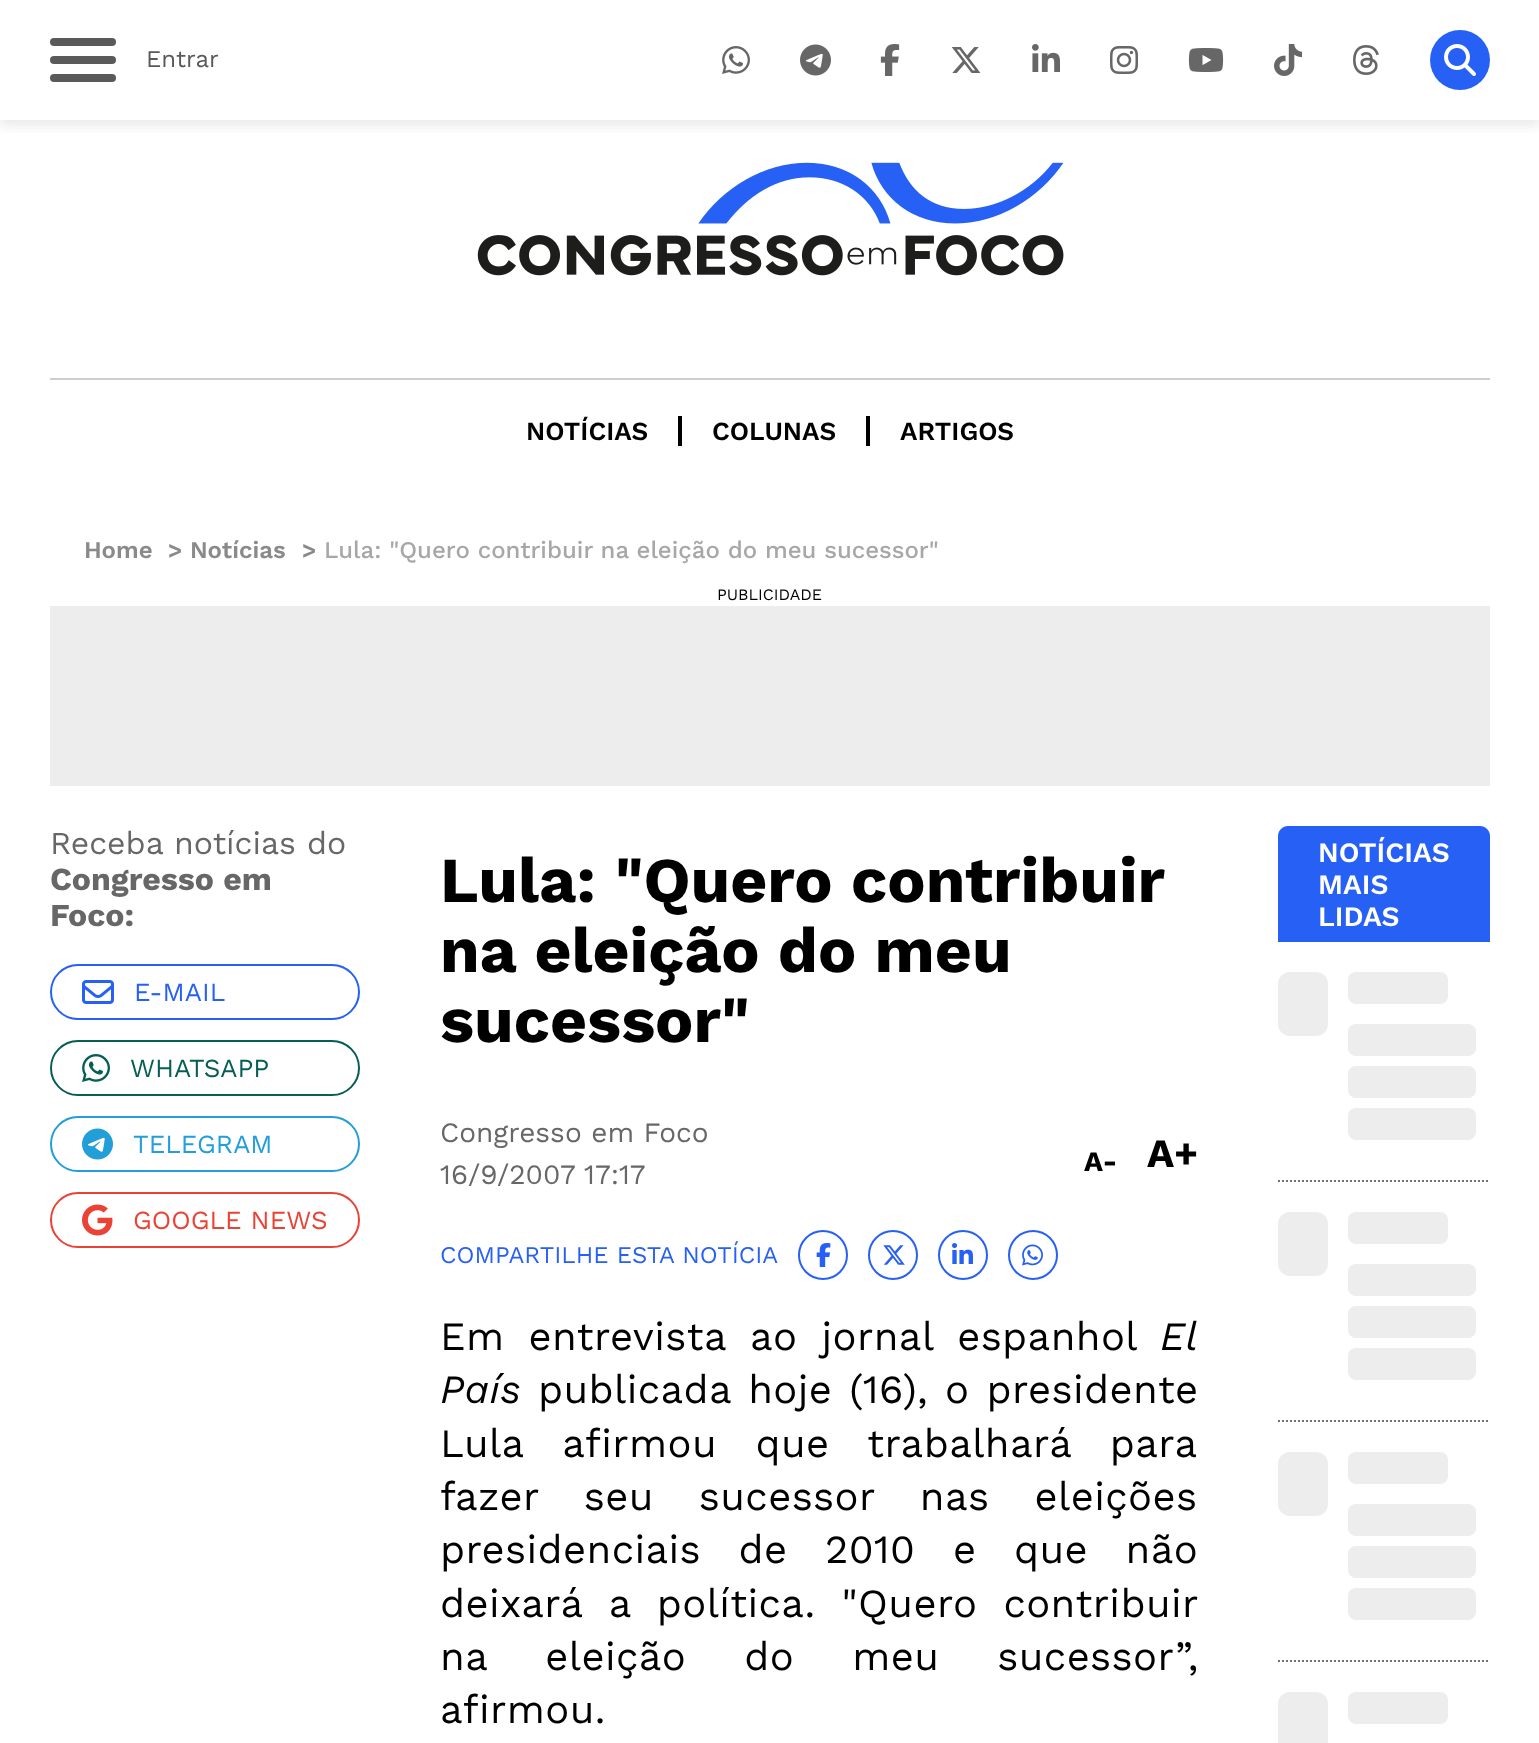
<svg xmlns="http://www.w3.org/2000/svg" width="1539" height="1743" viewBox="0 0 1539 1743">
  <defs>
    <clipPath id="clip1"><rect x="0" y="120" width="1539" height="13"/></clipPath>
    <filter id="blur1" x="-50%" y="-200%" width="200%" height="500%"><feGaussianBlur stdDeviation="6"/></filter>
  </defs>
  <rect width="100%" height="100%" fill="#ffffff"/>
  <g clip-path="url(#clip1)">
    <rect x="0" y="6" width="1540" height="120" fill="#7a7a7a" fill-opacity="0.16" filter="url(#blur1)"/>
  </g>
  <rect x="50" y="38" width="66" height="8" rx="4" fill="#5a5a5a"/>
  <rect x="50" y="56" width="66" height="8" rx="4" fill="#5a5a5a"/>
  <rect x="50" y="74" width="66" height="8" rx="4" fill="#5a5a5a"/>
  <text x="146" y="67" font-family="Work Sans" font-size="24" fill="#5a5a5a">Entrar</text>
  <image x="722" y="46" width="28" height="28" href="img1.png"/>
  <image x="800" y="44" width="31" height="32" href="img2.png"/>
  <image x="880" y="44" width="20" height="32" href="img3.png"/>
  <image x="951" y="47" width="30" height="26" href="img4.png"/>
  <image x="1032" y="44" width="28" height="28" href="img5.png"/>
  <image x="1110" y="46" width="28" height="28" href="img6.png"/>
  <image x="1188" y="48" width="36" height="24" href="img7.png"/>
  <image x="1274" y="44" width="28" height="32" href="img8.png"/>
  <image x="1353" y="45" width="26" height="30" href="img9.png"/>
  <circle cx="1460" cy="60" r="30" fill="#2660f5"/>
  <image x="1444" y="44" width="32" height="32" href="img10.png"/>
  <image x="477" y="162" width="587" height="114" href="img11.png"/>
  <rect x="50" y="378" width="1440" height="2" fill="#cecece"/>
  <text x="526" y="440" font-family="Work Sans" font-size="26" font-weight="600" fill="#000000">NOTÍCIAS</text>
  <rect x="678" y="416" width="4" height="30" fill="#000000"/>
  <text x="712" y="440" font-family="Work Sans" font-size="26" font-weight="600" fill="#000000">COLUNAS</text>
  <rect x="866" y="416" width="4" height="30" fill="#000000"/>
  <text x="900" y="440" font-family="Work Sans" font-size="26" font-weight="600" fill="#000000">ARTIGOS</text>
  <text x="84" y="558" font-family="Work Sans" font-size="24" font-weight="600" fill="#8a8a8a">Home</text>
  <text x="168" y="558" font-family="Work Sans" font-size="24" font-weight="600" fill="#8a8a8a">&gt;</text>
  <text x="190" y="558" font-family="Work Sans" font-size="24" font-weight="600" fill="#8a8a8a">Notícias</text>
  <text x="302" y="558" font-family="Work Sans" font-size="24" font-weight="600" fill="#8a8a8a">&gt;</text>
  <text x="324" y="558" font-family="Work Sans" font-size="24" font-weight="500" fill="#a7a7a7">Lula: "Quero contribuir na eleição do meu sucessor"</text>
  <text x="717" y="600" font-family="Work Sans" font-size="16" fill="#000000">PUBLICIDADE</text>
  <rect x="50" y="606" width="1440" height="180" fill="#ededed"/>
  <text x="50" y="854" font-family="Work Sans" font-size="32" fill="#676767">Receba notícias do</text>
  <text x="50" y="890" font-family="Work Sans" font-size="32" font-weight="bold" fill="#676767">Congresso em</text>
  <text x="50" y="926" font-family="Work Sans" font-size="32" font-weight="bold" fill="#676767">Foco:</text>
  <rect x="51" y="965" width="308" height="54" rx="27" fill="none" stroke="#2660f5" stroke-width="2"/>
  <image x="82" y="980" width="32" height="24" href="img12.png"/>
  <text x="134" y="1001" font-family="Work Sans" font-size="26" fill="#2660f5">E-MAIL</text>
  <rect x="51" y="1041" width="308" height="54" rx="27" fill="none" stroke="#075e54" stroke-width="2"/>
  <image x="82" y="1054" width="28" height="28" href="img13.png"/>
  <text x="130" y="1077" font-family="Work Sans" font-size="26" fill="#075e54">WHATSAPP</text>
  <rect x="51" y="1117" width="308" height="54" rx="27" fill="none" stroke="#229ed9" stroke-width="2"/>
  <image x="82" y="1128" width="31" height="32" href="img14.png"/>
  <text x="133" y="1153" font-family="Work Sans" font-size="26" fill="#229ed9">TELEGRAM</text>
  <rect x="51" y="1193" width="308" height="54" rx="27" fill="none" stroke="#ea4335" stroke-width="2"/>
  <image x="82" y="1204" width="31" height="32" href="img15.png"/>
  <text x="133" y="1229" font-family="Work Sans" font-size="26" fill="#ea4335">GOOGLE NEWS</text>
  <text x="440" y="902" font-family="Work Sans" font-size="64" font-weight="bold" fill="#000000">Lula: "Quero contribuir</text>
  <text x="440" y="972" font-family="Work Sans" font-size="64" font-weight="bold" fill="#000000">na eleição do meu</text>
  <text x="440" y="1042" font-family="Work Sans" font-size="64" font-weight="bold" fill="#000000">sucessor"</text>
  <text x="440" y="1142" font-family="Work Sans" font-size="28" fill="#676767">Congresso em Foco</text>
  <text x="440" y="1184" font-family="Work Sans" font-size="28" fill="#676767">16/9/2007</text>
  <text x="584" y="1184" font-family="Work Sans" font-size="28" fill="#676767">17:17</text>
  <text x="1084" y="1171" font-family="Work Sans" font-size="28" font-weight="bold" fill="#000000">A-</text>
  <text x="1147" y="1167" font-family="Work Sans" font-size="40" font-weight="bold" fill="#000000">A+</text>
  <text x="440" y="1263" font-family="Work Sans" font-size="24" fill="#2660f5">COMPARTILHE ESTA NOTÍCIA</text>
  <circle cx="823" cy="1255" r="24" fill="none" stroke="#2660f5" stroke-width="2"/>
  <image x="816" y="1243" width="15" height="24" href="img16.png"/>
  <circle cx="893" cy="1255" r="24" fill="none" stroke="#2660f5" stroke-width="2"/>
  <image x="883" y="1245" width="22" height="20" href="img17.png"/>
  <circle cx="963" cy="1255" r="24" fill="none" stroke="#2660f5" stroke-width="2"/>
  <image x="952" y="1243" width="21" height="21" href="img18.png"/>
  <circle cx="1033" cy="1255" r="24" fill="none" stroke="#2660f5" stroke-width="2"/>
  <image x="1022" y="1244" width="21" height="22" href="img19.png"/>
  <text x="440" y="1350" word-spacing="10" font-family="Work Sans" font-size="40" letter-spacing="0.4" fill="#000000">Em entrevista ao jornal espanhol</text>
  <text x="1160" y="1350" font-family="Work Sans" font-size="40" font-style="italic" letter-spacing="0.4" fill="#000000">El</text>
  <text x="440" y="1403" font-family="Work Sans" font-size="40" font-style="italic" letter-spacing="0.4" fill="#000000">País</text>
  <text x="538" y="1403" word-spacing="3" font-family="Work Sans" font-size="40" letter-spacing="0.4" fill="#000000">publicada hoje (16), o presidente</text>
  <text x="440" y="1457" word-spacing="24.5" font-family="Work Sans" font-size="40" letter-spacing="0.4" fill="#000000">Lula afirmou que trabalhará para</text>
  <text x="440" y="1510" word-spacing="31" font-family="Work Sans" font-size="40" letter-spacing="0.4" fill="#000000">fazer seu sucessor nas eleições</text>
  <text x="440" y="1563" word-spacing="23.5" font-family="Work Sans" font-size="40" letter-spacing="0.4" fill="#000000">presidenciais de 2010 e que não</text>
  <text x="440" y="1617" word-spacing="12" font-family="Work Sans" font-size="40" letter-spacing="0.4" fill="#000000">deixará a política. "Quero contribuir</text>
  <text x="440" y="1670" word-spacing="44" font-family="Work Sans" font-size="40" letter-spacing="0.4" fill="#000000">na eleição do meu sucessor”,</text>
  <text x="440" y="1723" font-family="Work Sans" font-size="40" letter-spacing="0.4" fill="#000000">afirmou.</text>
  <path d="M1288 826H1480C1485.5 826 1490 830.5 1490 836V942H1278V836C1278 830.5 1282.5 826 1288 826Z" fill="#2660f5"/>
  <text x="1318" y="862" font-family="Work Sans" font-size="28" font-weight="600" fill="#ffffff">NOTÍCIAS</text>
  <text x="1318" y="894" font-family="Work Sans" font-size="28" font-weight="600" fill="#ffffff">MAIS</text>
  <text x="1318" y="926" font-family="Work Sans" font-size="28" font-weight="600" fill="#ffffff">LIDAS</text>
  <path d="M1278 1181H1490" fill="none" stroke="#707070" stroke-width="2" stroke-dasharray="2 2"/>
  <rect x="1278" y="972" width="50" height="64" rx="12" fill="#ededed"/>
  <rect x="1348" y="972" width="100" height="32" rx="8" fill="#ededed"/>
  <rect x="1348" y="1024" width="128" height="32" rx="8" fill="#ededed"/>
  <rect x="1348" y="1066" width="128" height="32" rx="8" fill="#ededed"/>
  <rect x="1348" y="1108" width="128" height="32" rx="8" fill="#ededed"/>
  <path d="M1278 1421H1490" fill="none" stroke="#707070" stroke-width="2" stroke-dasharray="2 2"/>
  <rect x="1278" y="1212" width="50" height="64" rx="12" fill="#ededed"/>
  <rect x="1348" y="1212" width="100" height="32" rx="8" fill="#ededed"/>
  <rect x="1348" y="1264" width="128" height="32" rx="8" fill="#ededed"/>
  <rect x="1348" y="1306" width="128" height="32" rx="8" fill="#ededed"/>
  <rect x="1348" y="1348" width="128" height="32" rx="8" fill="#ededed"/>
  <path d="M1278 1661H1490" fill="none" stroke="#707070" stroke-width="2" stroke-dasharray="2 2"/>
  <rect x="1278" y="1452" width="50" height="64" rx="12" fill="#ededed"/>
  <rect x="1348" y="1452" width="100" height="32" rx="8" fill="#ededed"/>
  <rect x="1348" y="1504" width="128" height="32" rx="8" fill="#ededed"/>
  <rect x="1348" y="1546" width="128" height="32" rx="8" fill="#ededed"/>
  <rect x="1348" y="1588" width="128" height="32" rx="8" fill="#ededed"/>
  <rect x="1278" y="1692" width="50" height="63" rx="12" fill="#ededed"/>
  <rect x="1348" y="1692" width="100" height="32" rx="8" fill="#ededed"/>
</svg>
